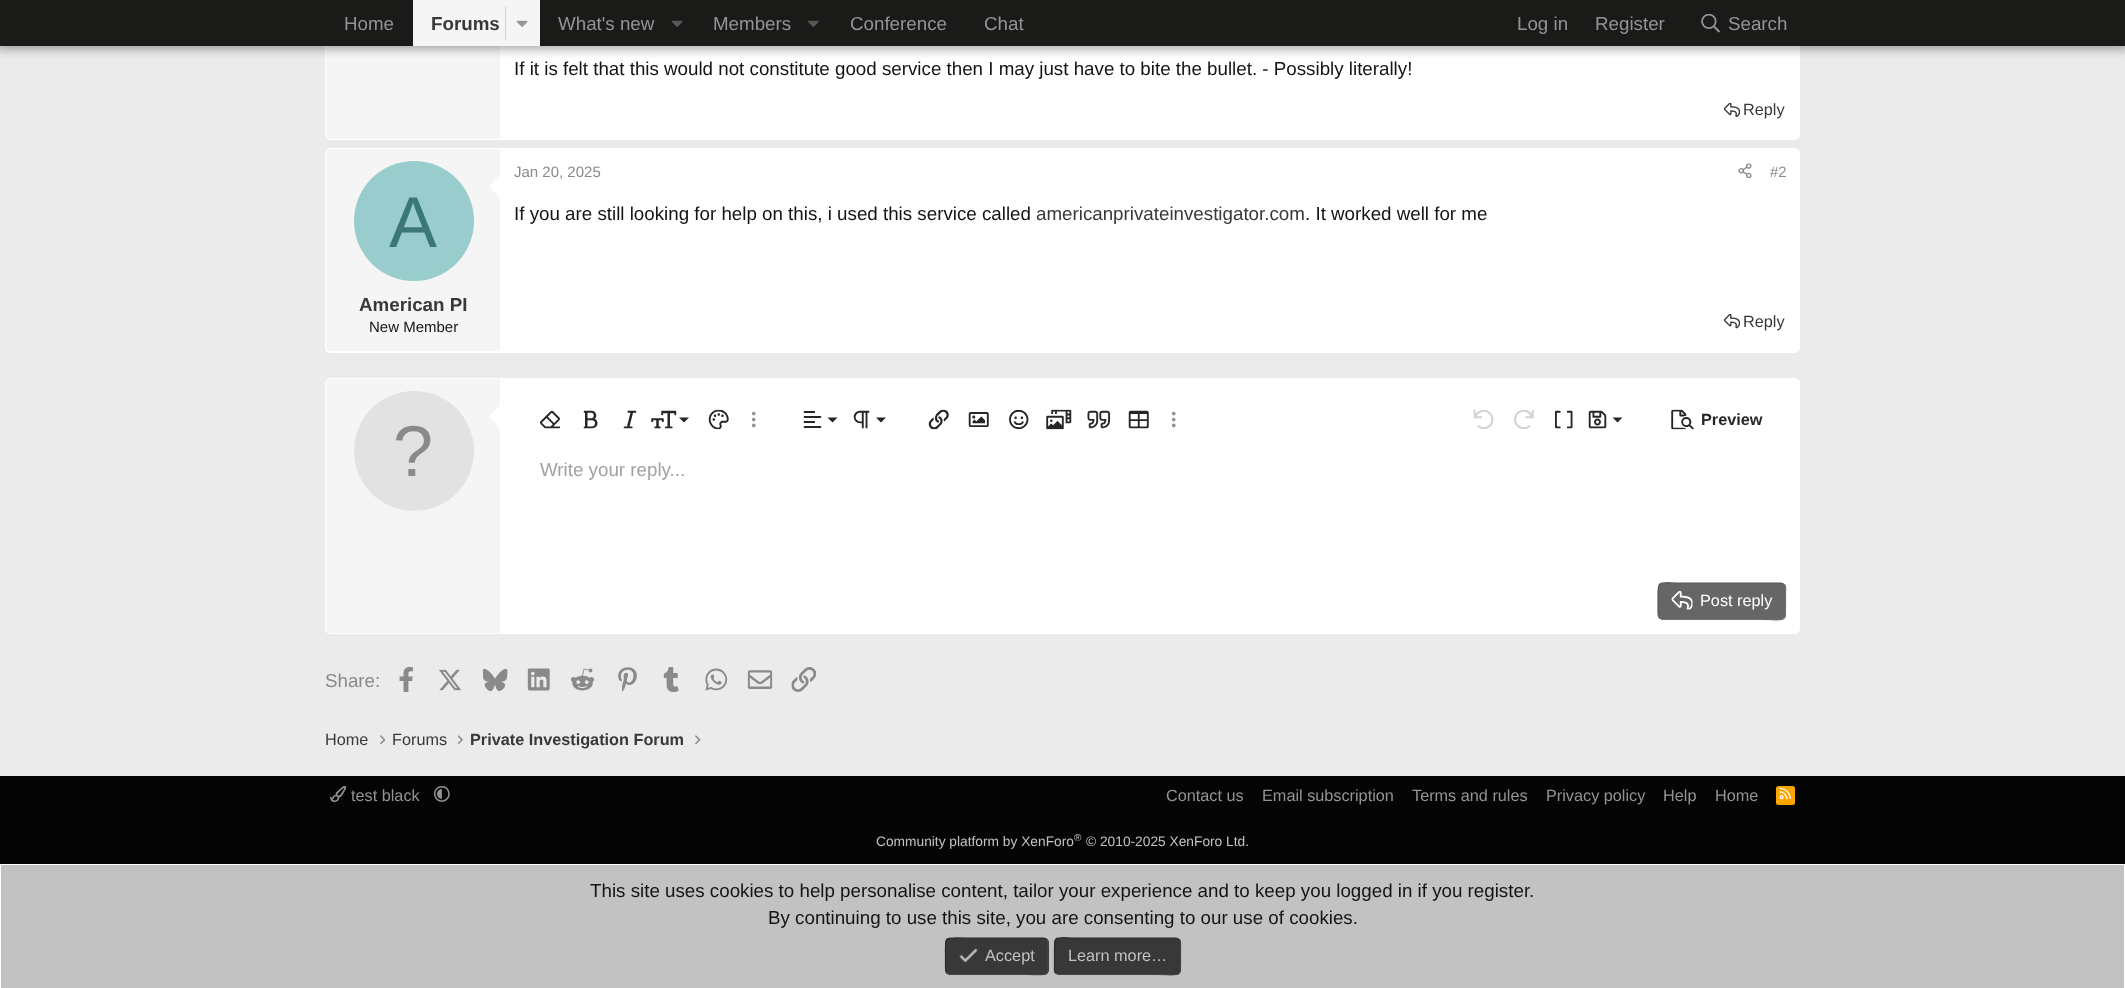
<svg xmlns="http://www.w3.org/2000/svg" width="2125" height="988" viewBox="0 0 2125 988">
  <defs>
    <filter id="blur1" x="-50%" y="-200%" width="200%" height="500%"><feGaussianBlur stdDeviation="5"/></filter>
  </defs>
  <rect width="100%" height="100%" fill="#ebebeb"/>
  <rect x="325.5" y="-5.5" width="1474" height="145" rx="4.5" fill="#ffffff" stroke="#ffffff"/>
  <path d="M330-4H501V139H330C328 139 326 137 326 135V0C326-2 328-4 330-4Z" fill="#f5f5f5"/>
  <rect x="500" y="46" width="1" height="93" fill="#ffffff"/>
  <rect x="-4" y="-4" width="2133" height="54" fill="#000000" fill-opacity="0.3" filter="url(#blur1)"/>
  <rect x="0" y="0" width="2125" height="46" fill="#1a1a19"/>
  <text x="344" y="30" font-family="Liberation Sans" font-size="18.75" fill="#949494">Home</text>
  <rect x="413" y="0" width="127" height="46" fill="#f5f5f5"/>
  <text x="431" y="30" font-family="Liberation Sans" font-size="18.75" font-weight="bold" fill="#383838">Forums</text>
  <rect x="505" y="6" width="1" height="34" fill="#d4d4d4"/>
  <image x="516" y="20" width="12" height="7" href="img1.png"/>
  <text x="558" y="30" font-family="Liberation Sans" font-size="18.75" fill="#949494">What's new</text>
  <image x="671" y="20" width="12" height="7" href="img2.png"/>
  <text x="713" y="30" font-family="Liberation Sans" font-size="18.75" fill="#949494">Members</text>
  <image x="808" y="20" width="11" height="7" href="img3.png"/>
  <text x="850" y="30" font-family="Liberation Sans" font-size="18.75" fill="#949494">Conference</text>
  <text x="984" y="30" font-family="Liberation Sans" font-size="18.75" fill="#949494">Chat</text>
  <text x="1517" y="30" font-family="Liberation Sans" font-size="18.75" fill="#949494">Log in</text>
  <text x="1595" y="30" font-family="Liberation Sans" font-size="18.75" fill="#949494">Register</text>
  <image x="1701" y="14" width="19" height="19" href="img4.png"/>
  <text x="1728" y="30" font-family="Liberation Sans" font-size="18.75" fill="#949494">Search</text>
  <text x="514" y="75" font-family="Liberation Sans" font-size="18.75" fill="#141414">If it is felt that this would not constitute good service then I may just have to bite the bullet. - Possibly literally!</text>
  <image x="1724" y="103" width="16" height="15" href="img5.png"/>
  <text x="1743" y="115" font-family="Liberation Sans" font-size="16.25" fill="#383838">Reply</text>
  <rect x="325.5" y="148.5" width="1474" height="204" rx="4.5" fill="#ffffff" stroke="#ffffff"/>
  <path d="M330 149H501V351H330C328 351 326 349 326 347V153C326 151 328 149 330 149Z" fill="#f5f5f5"/>
  <rect x="500" y="149" width="1" height="202" fill="#ffffff"/>
  <path d="M501 174V199L489 186Z" fill="#ffffff"/>
  <circle cx="414" cy="221" r="60" fill="#99cccc"/>
  <text x="389" y="247" font-family="Liberation Sans" font-size="72" fill="#3c7777">A</text>
  <text x="359" y="311" font-family="Liberation Sans" font-size="18.75" font-weight="bold" fill="#383838">American PI</text>
  <text x="369" y="332" font-family="Liberation Sans" font-size="15" fill="#141414">New Member</text>
  <text x="514" y="177" font-family="Liberation Sans" font-size="15" fill="#8a8a8a">Jan 20, 2025</text>
  <image x="1738" y="163" width="14" height="15" href="img6.png"/>
  <text x="1770" y="177" font-family="Liberation Sans" font-size="15" fill="#8a8a8a">#2</text>
  <text x="514" y="220" font-family="Liberation Sans" font-size="18.75" fill="#141414">If you are still looking for help on this, i used this service called</text>
  <text x="1036" y="220" font-family="Liberation Sans" font-size="18.75" fill="#383838">americanprivateinvestigator.com</text>
  <text x="1305" y="220" font-family="Liberation Sans" font-size="18.75" fill="#141414">. It worked well for me</text>
  <image x="1724" y="314" width="16" height="15" href="img7.png"/>
  <text x="1743" y="327" font-family="Liberation Sans" font-size="16.25" fill="#383838">Reply</text>
  <rect x="325.5" y="378.5" width="1474" height="255" rx="4.5" fill="#ffffff" stroke="#ffffff"/>
  <path d="M330 379H501V633H330C328 633 326 631 326 629V383C326 381 328 379 330 379Z" fill="#f5f5f5"/>
  <rect x="500" y="379" width="1" height="254" fill="#ffffff"/>
  <path d="M501 404V429L489 416Z" fill="#ffffff"/>
  <circle cx="414" cy="451" r="60" fill="#e2e2e2"/>
  <text x="393" y="476" font-family="Liberation Sans" font-size="72" fill="#8a8a8a">?</text>
  <image x="540" y="410" width="20" height="19" href="img8.png"/>
  <image x="583" y="410" width="15" height="19" href="img9.png"/>
  <image x="623" y="410" width="14" height="19" href="img10.png"/>
  <image x="651" y="410" width="26" height="19" href="img11.png"/>
  <path d="M679 417.5H689L684 422.5Z" fill="#262626"/>
  <image x="708" y="409" width="21" height="21" href="img12.png"/>
  <image x="751" y="411" width="5" height="17" href="img13.png"/>
  <image x="803" y="411" width="19" height="17" href="img14.png"/>
  <path d="M827.5 417.5H837.5L832.5 422.5Z" fill="#262626"/>
  <image x="853" y="410" width="17" height="19" href="img15.png"/>
  <path d="M876 417.5H886L881 422.5Z" fill="#262626"/>
  <image x="928" y="409" width="21" height="21" href="img16.png"/>
  <image x="968" y="412" width="21" height="15" href="img17.png"/>
  <image x="1009" y="409" width="20" height="21" href="img18.png"/>
  <image x="1046" y="409" width="26" height="21" href="img19.png"/>
  <image x="1087" y="410" width="23" height="19" href="img20.png"/>
  <image x="1128" y="410" width="21" height="19" href="img21.png"/>
  <image x="1171" y="411" width="5" height="17" href="img13.png"/>
  <image x="1473" y="410" width="21" height="19" href="img22.png"/>
  <image x="1514" y="410" width="20" height="19" href="img23.png"/>
  <image x="1555" y="410" width="18" height="19" href="img24.png"/>
  <image x="1588" y="410" width="19" height="19" href="img25.png"/>
  <path d="M1612.5 417.5H1622.5L1617.5 422.5Z" fill="#262626"/>
  <image x="1671" y="409" width="23" height="21" href="img26.png"/>
  <text x="1701" y="425" font-family="Liberation Sans" font-size="16.25" font-weight="bold" fill="#262626">Preview</text>
  <text x="540" y="476" font-family="Liberation Sans" font-size="18.75" fill="#a1a1a1">Write your reply...</text>
  <rect x="1658" y="583" width="128" height="37" rx="5" fill="#666666"/>
  <path d="M1784.5 584.5C1786.5 586.5 1785.5 589.5 1785.5 592V601C1785.5 624 1787.5 619.5 1761.5 619.5H1662.5L1659.5 618" fill="none" stroke="#737373" stroke-width="1.2"/>
  <path d="M1659.5 618C1657.5 616 1658 613 1658 610.5V601C1658 578.5 1656 583 1682.5 583H1781L1784.5 584.5" fill="none" stroke="#595959" stroke-width="1.2"/>
  <image x="1671" y="591" width="22" height="19" href="img27.png"/>
  <text x="1700" y="606" font-family="Liberation Sans" font-size="16.25" fill="#ffffff">Post reply</text>
  <text x="325" y="687" font-family="Liberation Sans" font-size="18.75" fill="#8a8a8a">Share:</text>
  <image x="399" y="667" width="14" height="25" href="img28.png"/>
  <image x="439" y="669" width="22" height="22" href="img29.png"/>
  <image x="483" y="668" width="25" height="24" href="img30.png"/>
  <image x="527" y="668" width="23" height="23" href="img31.png"/>
  <image x="570" y="668" width="24" height="23" href="img32.png"/>
  <image x="618" y="667" width="19" height="25" href="img33.png"/>
  <image x="663" y="667" width="16" height="25" href="img34.png"/>
  <image x="705" y="668" width="23" height="23" href="img35.png"/>
  <image x="747" y="670" width="26" height="19" href="img36.png"/>
  <image x="791" y="667" width="25" height="25" href="img37.png"/>
  <text x="325" y="745" font-family="Liberation Sans" font-size="16.25" fill="#383838">Home</text>
  <image x="380" y="735" width="5" height="10" href="img38.png"/>
  <text x="392" y="745" font-family="Liberation Sans" font-size="16.25" fill="#383838">Forums</text>
  <image x="458" y="735" width="5" height="10" href="img39.png"/>
  <text x="470" y="745" font-family="Liberation Sans" font-size="16.25" font-weight="bold" fill="#383838">Private Investigation Forum</text>
  <image x="695" y="735" width="6" height="10" href="img40.png"/>
  <rect x="0" y="776" width="2125" height="88" fill="#050505"/>
  <image x="330" y="786" width="16" height="16" href="img41.png"/>
  <text x="351" y="801" font-family="Liberation Sans" font-size="16.25" fill="#949494">test black</text>
  <image x="434" y="786" width="16" height="16" href="img42.png"/>
  <text x="1166" y="801" font-family="Liberation Sans" font-size="16.25" fill="#949494">Contact us</text>
  <text x="1262" y="801" font-family="Liberation Sans" font-size="16.25" fill="#949494">Email subscription</text>
  <text x="1412" y="801" font-family="Liberation Sans" font-size="16.25" fill="#949494">Terms and rules</text>
  <text x="1546" y="801" font-family="Liberation Sans" font-size="16.25" fill="#949494">Privacy policy</text>
  <text x="1663" y="801" font-family="Liberation Sans" font-size="16.25" fill="#949494">Help</text>
  <text x="1715" y="801" font-family="Liberation Sans" font-size="16.25" fill="#949494">Home</text>
  <rect x="1776" y="786" width="19" height="19" rx="2.5" fill="#ffa500"/>
  <image x="1779" y="787" width="12" height="13" href="img43.png"/>
  <text x="876" y="846" font-family="Liberation Sans" font-size="13.75" fill="#c2c2c2">Community platform by XenForo</text>
  <text x="1074" y="841" font-family="Liberation Sans" font-size="10" fill="#c2c2c2">®</text>
  <text x="1086" y="846" font-family="Liberation Sans" font-size="13.75" fill="#c2c2c2">© 2010-2025 XenForo Ltd.</text>
  <rect x="0.5" y="864.5" width="2124" height="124" fill="#c2c2c2" stroke="#ffffff"/>
  <text x="590" y="897" font-family="Liberation Sans" font-size="18.75" fill="#141414">This site uses cookies to help personalise content, tailor your experience and to keep you logged in if you register.</text>
  <text x="768" y="924" font-family="Liberation Sans" font-size="18.75" fill="#141414">By continuing to use this site, you are consenting to our use of cookies.</text>
  <rect x="945" y="938" width="104" height="37" rx="5" fill="#383838"/>
  <path d="M1047 939.5C1049 941.5 1048 944.5 1048 947V956C1048 977.5 1051 974.5 1028 974.5H950L947 973" fill="none" stroke="#454545" stroke-width="1.2"/>
  <path d="M947 973C945 971 945.5 968 945.5 965.5V956C945.5 935 943 938 965.5 938H1044L1047 939.5" fill="none" stroke="#2b2b2b" stroke-width="1.2"/>
  <image x="959" y="948" width="19" height="15" href="img44.png"/>
  <text x="985" y="961" font-family="Liberation Sans" font-size="16.25" fill="#c2c2c2">Accept</text>
  <rect x="1054" y="938" width="127" height="37" rx="5" fill="#383838"/>
  <path d="M1179.5 939.5C1181.5 941.5 1180.5 944.5 1180.5 947V956C1180.5 979 1183 974.5 1156.5 974.5H1059L1055.5 973" fill="none" stroke="#454545" stroke-width="1.2"/>
  <path d="M1055.5 973C1053.5 971 1054.5 968 1054.5 965.5V956C1054.5 933.5 1052 938 1078.5 938H1176L1179.5 939.5" fill="none" stroke="#2b2b2b" stroke-width="1.2"/>
  <text x="1068" y="961" font-family="Liberation Sans" font-size="16.25" fill="#c2c2c2">Learn more…</text>
</svg>
